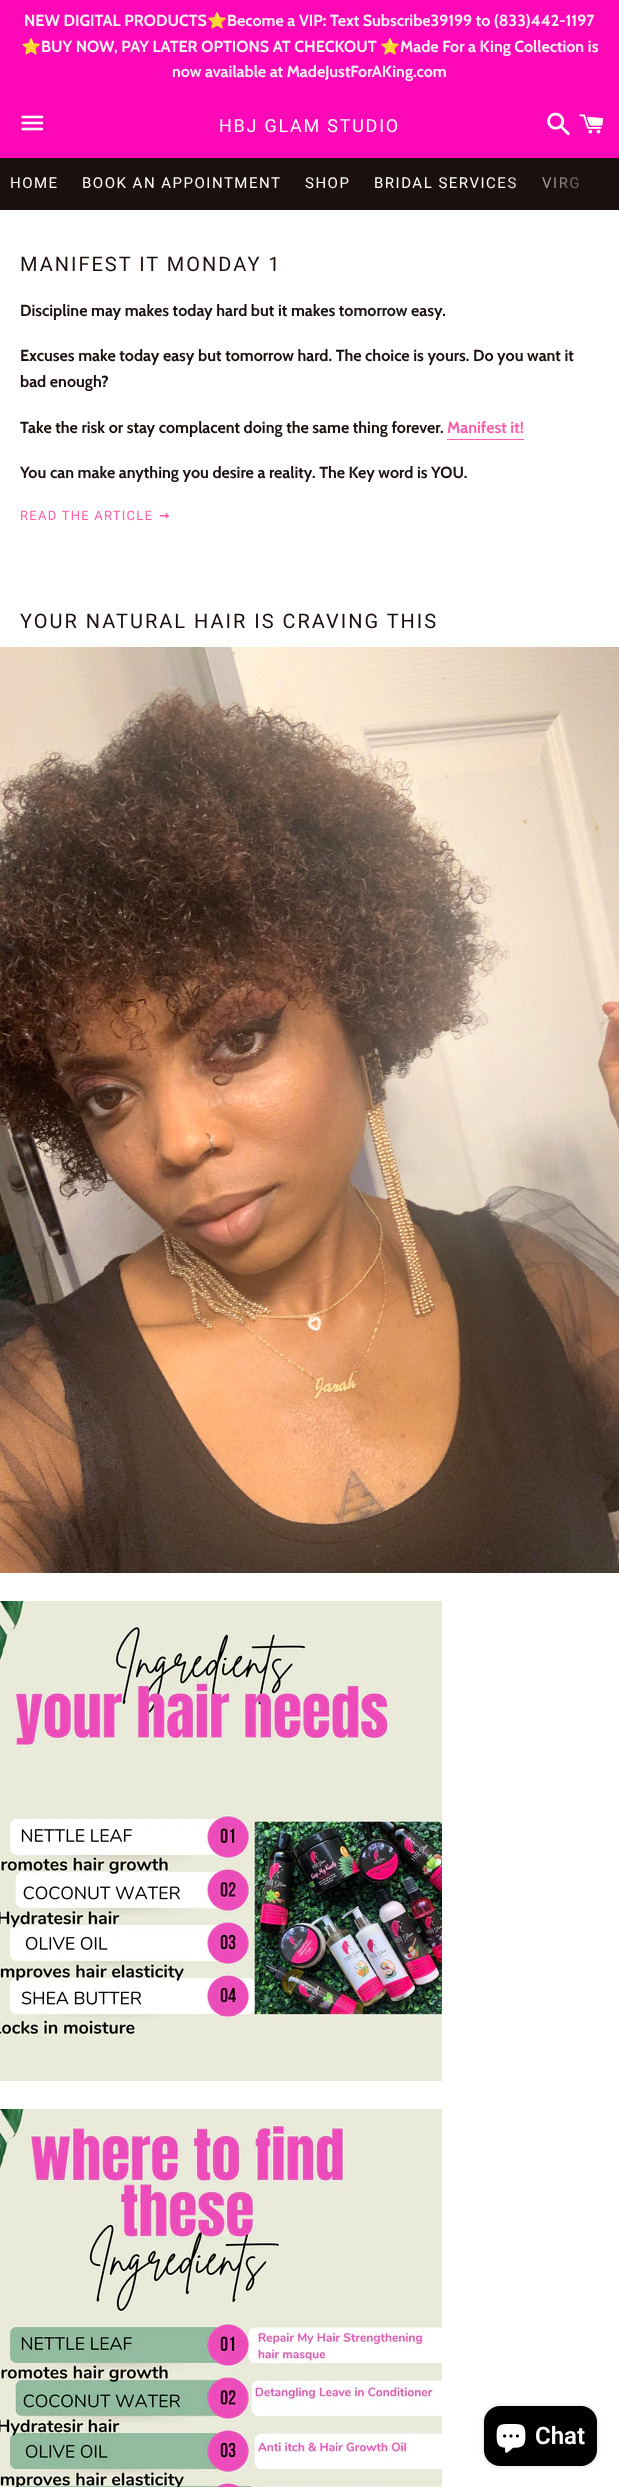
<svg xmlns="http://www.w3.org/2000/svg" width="619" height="2487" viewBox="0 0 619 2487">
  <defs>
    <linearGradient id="g1" gradientUnits="userSpaceOnUse" x1="494" y1="184" x2="619" y2="184"><stop offset="0" stop-color="#1b100e" stop-opacity="0"/><stop offset="1" stop-color="#1b100e"/></linearGradient>
    <filter id="blur1" x="-50%" y="-200%" width="200%" height="500%"><feGaussianBlur stdDeviation="2.5"/></filter>
  </defs>
  <rect width="100%" height="100%" fill="#ffffff"/>
  <rect x="0" y="0" width="619" height="158" fill="#ff08b8"/>
  <text x="24" y="26" font-family="Cabin" font-size="16" font-weight="bold" fill="#f4f4f4">NEW DIGITAL PRODUCTS</text>
  <text x="207" y="26" font-family="Noto Color Emoji" font-size="16" fill="#f4f4f4">⭐️</text>
  <text x="227" y="26" font-family="Cabin" font-size="16" font-weight="bold" fill="#f4f4f4">Become a VIP: Text Subscribe39199 to (833)442-1197</text>
  <text x="21" y="52" font-family="Noto Color Emoji" font-size="16" fill="#f4f4f4">⭐</text>
  <text x="41" y="52" font-family="Cabin" font-size="16" font-weight="bold" fill="#f4f4f4">BUY NOW, PAY LATER OPTIONS AT CHECKOUT</text>
  <text x="380" y="52" font-family="Noto Color Emoji" font-size="16" fill="#f4f4f4">⭐</text>
  <text x="400" y="52" font-family="Cabin" font-size="16" font-weight="bold" fill="#f4f4f4">Made For a King Collection is</text>
  <text x="172" y="77" font-family="Cabin" font-size="16" font-weight="bold" fill="#f4f4f4">now available at MadeJustForAKing.com</text>
  <image x="21" y="115" width="23" height="16" href="img1.png"/>
  <text x="219" y="132" font-family="Roboto" font-size="18" letter-spacing="1.75" fill="#ffffff">HBJ GLAM STUDIO</text>
  <image x="547" y="112" width="23" height="24" href="img2.png"/>
  <image x="579" y="114" width="25" height="20" href="img3.png"/>
  <rect x="0" y="158" width="618" height="52" fill="#1b100e"/>
  <text x="374" y="188" font-family="Roboto" font-size="15" letter-spacing="1.5" fill="#ffffff">BRIDAL SERVICES</text>
  <text x="542" y="188" font-family="Roboto" font-size="15" letter-spacing="1.5" fill="#ffffff">VIRG</text>
  <rect x="499" y="158" width="120" height="52" fill="url(#g1)"/>
  <text x="10" y="188" font-family="Roboto" font-size="15" letter-spacing="1.5" fill="#ffffff">HOME</text>
  <text x="82" y="188" font-family="Roboto" font-size="15" letter-spacing="1.5" fill="#ffffff">BOOK AN APPOINTMENT</text>
  <text x="305" y="188" font-family="Roboto" font-size="15" letter-spacing="1.5" fill="#ffffff">SHOP</text>
  <text x="20" y="271" font-family="Roboto" font-size="20" letter-spacing="2" fill="#1b100e">MANIFEST IT MONDAY 1</text>
  <text x="20" y="316" font-family="Cabin" font-size="16" font-weight="bold" fill="#1b100e">Discipline may makes today hard but it makes tomorrow easy.</text>
  <text x="20" y="361" font-family="Cabin" font-size="16" font-weight="bold" fill="#1b100e">Excuses make today easy but tomorrow hard. The choice is yours. Do you want it</text>
  <text x="20" y="387" font-family="Cabin" font-size="16" font-weight="bold" fill="#1b100e">bad enough?</text>
  <text x="20" y="433" font-family="Cabin" font-size="16" font-weight="bold" fill="#1b100e">Take the risk or stay complacent doing the same thing forever.</text>
  <text x="447" y="433" font-family="Cabin" font-size="16" font-weight="bold" fill="#fd5da8">Manifest it!</text>
  <rect x="447" y="439" width="77" height="1" fill="#fd5da8"/>
  <text x="20" y="478" font-family="Cabin" font-size="16" font-weight="bold" fill="#1b100e">You can make anything you desire a reality. The Key word is YOU.</text>
  <text x="20" y="520" font-family="Roboto" font-size="13" letter-spacing="1.25" fill="#fd5da8">READ THE ARTICLE</text>
  <image x="159" y="512" width="11" height="7" href="img4.png"/>
  <text x="20" y="628" font-family="Roboto" font-size="20" letter-spacing="2" fill="#1b100e">YOUR NATURAL HAIR IS CRAVING THIS</text>
  <image x="0" y="647" width="619" height="926" href="img5.png"/>
  <image x="0" y="1601" width="442" height="480" href="img6.png"/>
  <image x="0" y="2109" width="442" height="378" href="img7.png"/>
  <rect x="484" y="2406" width="113" height="60" rx="16" fill="#000000" fill-opacity="0.15" filter="url(#blur1)"/>
  <rect x="484" y="2406" width="113" height="60" rx="16" fill="#000000"/>
  <image x="496" y="2424" width="30" height="29" href="img8.png"/>
  <text x="535" y="2444" font-family="Roboto" font-size="24" font-weight="600" fill="#ffffff">Chat</text>
</svg>
